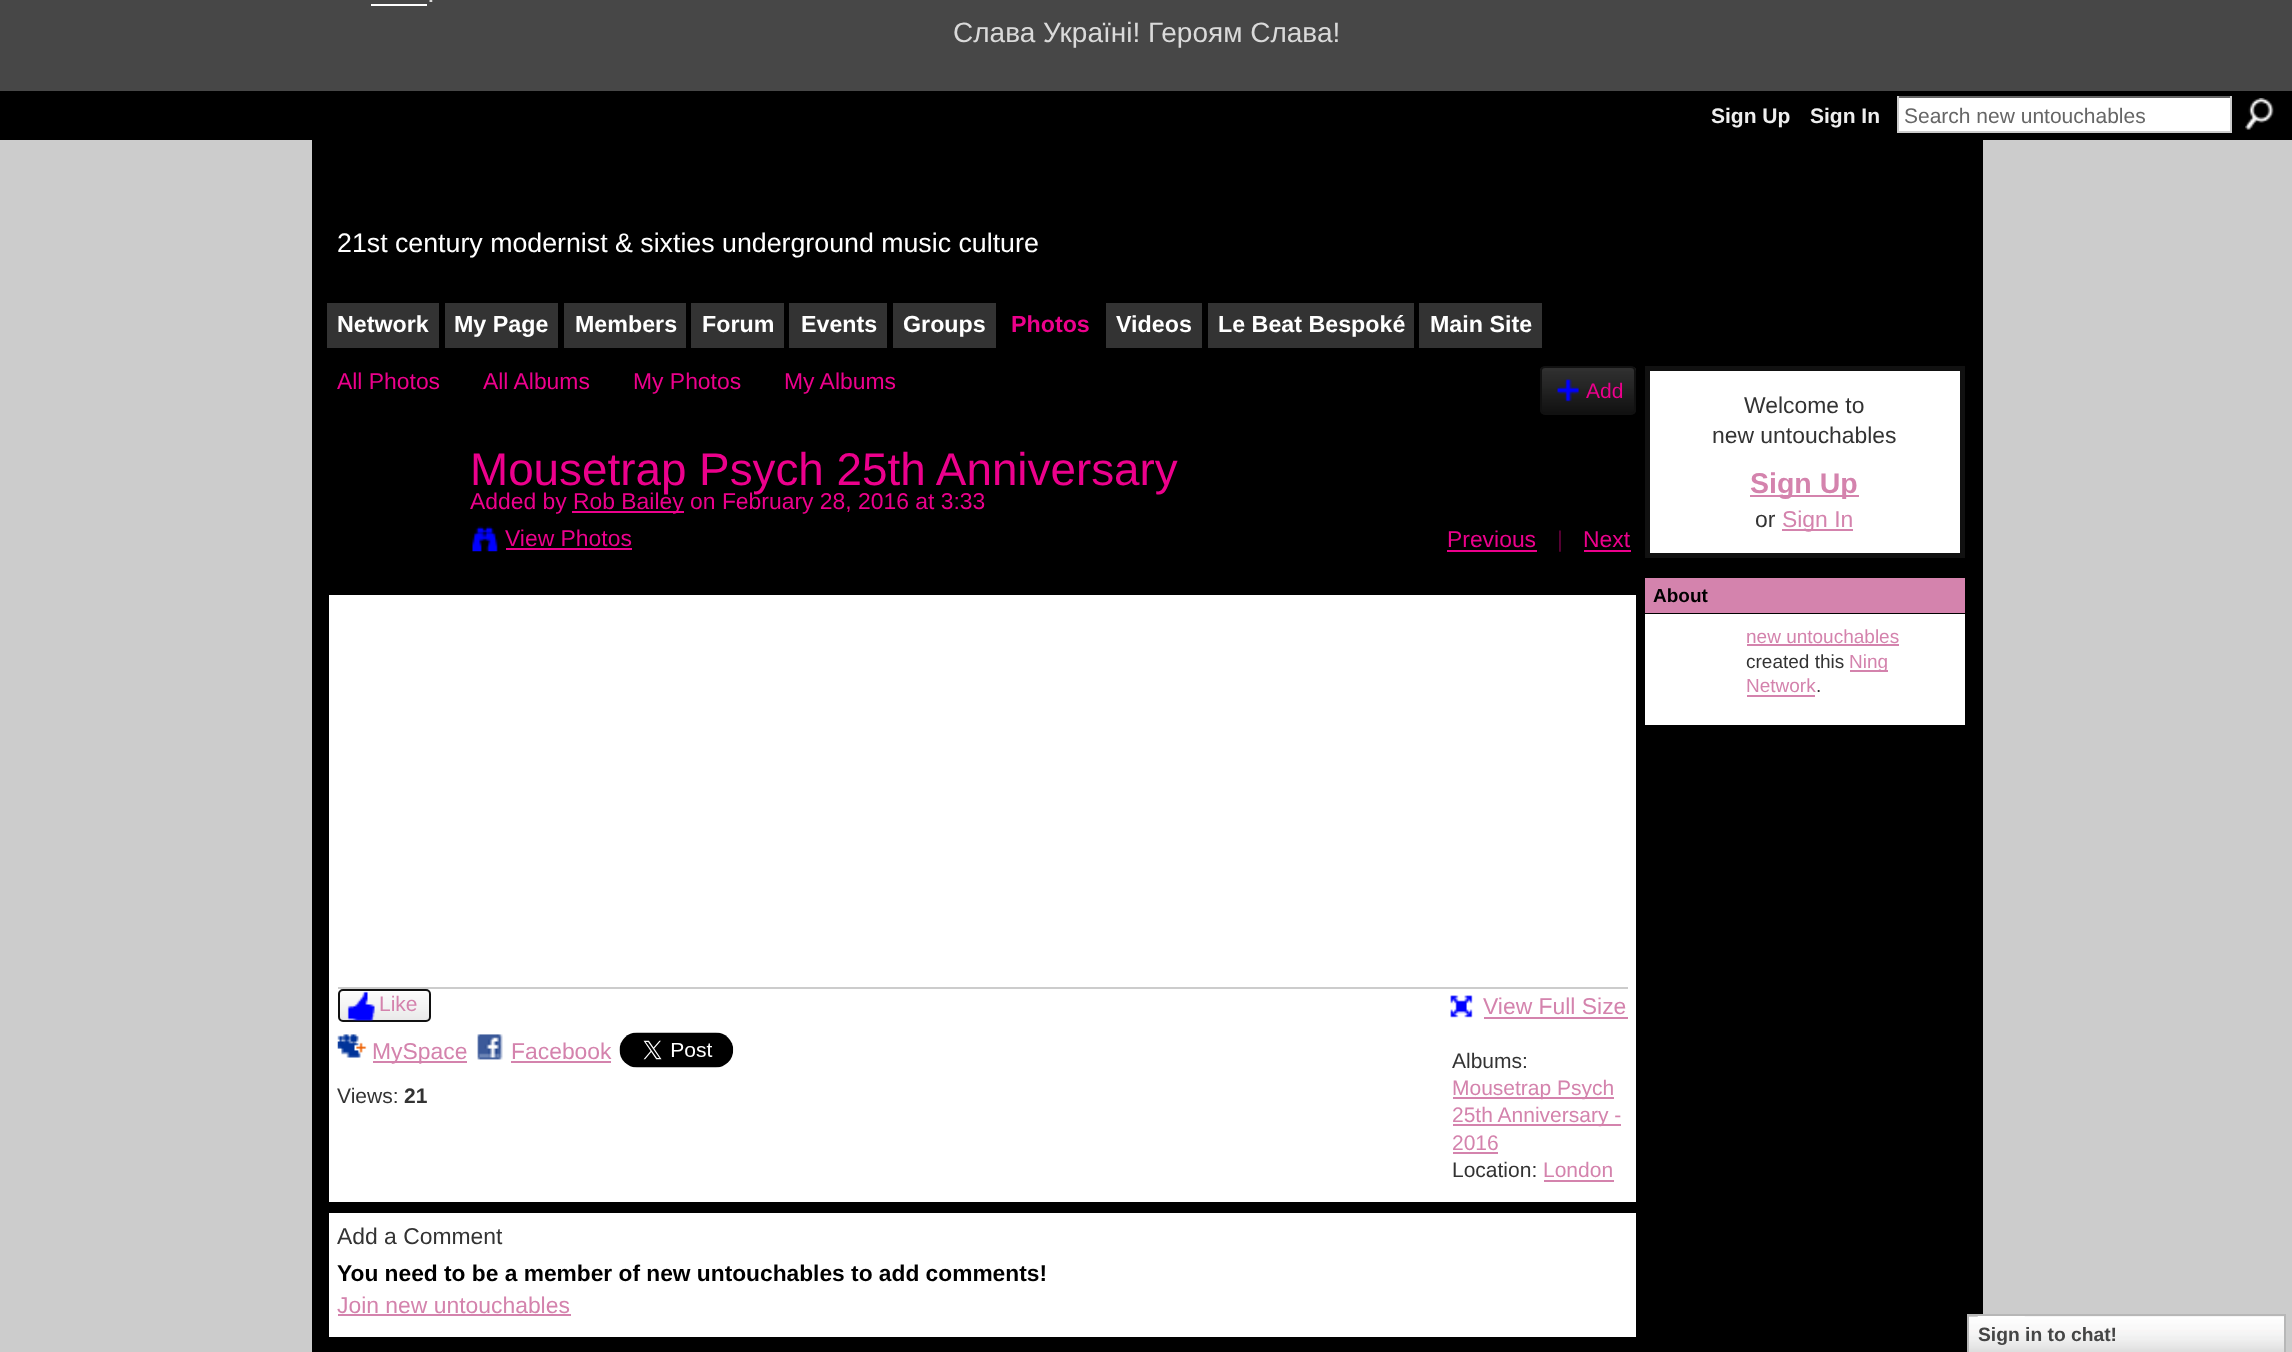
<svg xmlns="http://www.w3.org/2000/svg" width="2292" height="1352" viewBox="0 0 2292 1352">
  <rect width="100%" height="100%" fill="#cccccc"/>
  <rect x="0" y="0" width="2292" height="91" fill="#474747"/>
  <text x="427" y="2" font-family="Liberation Sans" font-size="28" fill="#dadada">.</text>
  <rect x="371" y="4" width="56" height="2" fill="#ffffff"/>
  <text x="953" y="42" font-family="Liberation Sans" font-size="28" fill="#dadada">Слава Україні! Героям Слава!</text>
  <rect x="0" y="91" width="2292" height="49" fill="#000000"/>
  <text x="1711" y="123" font-family="Liberation Sans" font-size="21" font-weight="bold" fill="#eeeeee">Sign Up</text>
  <text x="1810" y="123" font-family="Liberation Sans" font-size="21" font-weight="bold" fill="#eeeeee">Sign In</text>
  <rect x="1899" y="98" width="331" height="33" fill="#ffffff"/>
  <rect x="1897" y="96" width="334" height="2" fill="#666666"/>
  <rect x="2230" y="96" width="2" height="37" fill="#cccccc"/>
  <rect x="1897" y="131" width="334" height="2" fill="#cccccc"/>
  <rect x="1897" y="96" width="2" height="37" fill="#cccccc"/>
  <text x="1904" y="123" font-family="Liberation Sans" font-size="21" fill="#666666">Search new untouchables</text>
  <image x="2245" y="98" width="29" height="32" href="img1.png"/>
  <rect x="312" y="140" width="1671" height="1212" fill="#000000"/>
  <text x="337" y="252" font-family="Liberation Sans" font-size="26.75" fill="#ffffff">21st century modernist &amp; sixties underground music culture</text>
  <rect x="327" y="303" width="112" height="45" fill="#333333"/>
  <text x="337" y="332" font-family="Liberation Sans" font-size="23.25" font-weight="bold" fill="#ffffff">Network</text>
  <rect x="445" y="303" width="113" height="45" fill="#333333"/>
  <text x="454" y="332" font-family="Liberation Sans" font-size="23.25" font-weight="bold" fill="#ffffff">My Page</text>
  <rect x="564" y="303" width="122" height="45" fill="#333333"/>
  <text x="575" y="332" font-family="Liberation Sans" font-size="23.25" font-weight="bold" fill="#ffffff">Members</text>
  <rect x="691" y="303" width="93" height="45" fill="#333333"/>
  <text x="702" y="332" font-family="Liberation Sans" font-size="23.25" font-weight="bold" fill="#ffffff">Forum</text>
  <rect x="789" y="303" width="98" height="45" fill="#333333"/>
  <text x="801" y="332" font-family="Liberation Sans" font-size="23.25" font-weight="bold" fill="#ffffff">Events</text>
  <rect x="893" y="303" width="103" height="45" fill="#333333"/>
  <text x="903" y="332" font-family="Liberation Sans" font-size="23.25" font-weight="bold" fill="#ffffff">Groups</text>
  <text x="1011" y="332" font-family="Liberation Sans" font-size="23.25" font-weight="bold" fill="#ec008c">Photos</text>
  <rect x="1106" y="303" width="96" height="45" fill="#333333"/>
  <text x="1116" y="332" font-family="Liberation Sans" font-size="23.25" font-weight="bold" fill="#ffffff">Videos</text>
  <rect x="1208" y="303" width="206" height="45" fill="#333333"/>
  <text x="1218" y="332" font-family="Liberation Sans" font-size="23.25" font-weight="bold" fill="#ffffff">Le Beat Bespoké</text>
  <rect x="1419" y="303" width="123" height="45" fill="#333333"/>
  <text x="1430" y="332" font-family="Liberation Sans" font-size="23.25" font-weight="bold" fill="#ffffff">Main Site</text>
  <text x="337" y="389" font-family="Liberation Sans" font-size="22.9" fill="#ec008c">All Photos</text>
  <text x="483" y="389" font-family="Liberation Sans" font-size="22.9" fill="#ec008c">All Albums</text>
  <text x="633" y="389" font-family="Liberation Sans" font-size="22.9" fill="#ec008c">My Photos</text>
  <text x="784" y="389" font-family="Liberation Sans" font-size="22.9" fill="#ec008c">My Albums</text>
  <image x="1540" y="367" width="96" height="48" href="img2.png"/>
  <rect x="1541" y="367" width="94" height="47" rx="4" fill="none" stroke="#111111" stroke-width="2"/>
  <image x="1557" y="379" width="22" height="23" href="img3.png"/>
  <text x="1586" y="398" font-family="Liberation Sans" font-size="21" fill="#ec008c">Add</text>
  <text x="470" y="485" font-family="Liberation Sans" font-size="45.8" fill="#ec008c">Mousetrap Psych 25th Anniversary</text>
  <text x="470" y="509" font-family="Liberation Sans" font-size="22.9" fill="#ec008c">Added by</text>
  <rect x="572" y="511" width="112" height="2" fill="#ec008c"/>
  <text x="573" y="509" font-family="Liberation Sans" font-size="22.9" fill="#ec008c">Rob Bailey on February 28, 2016 at 3:33</text>
  <image x="472" y="526" width="26" height="26" href="img4.png"/>
  <text x="505" y="546" font-family="Liberation Sans" font-size="22.9" fill="#ec008c">View Photos</text>
  <rect x="506" y="548" width="126" height="2" fill="#ec008c"/>
  <text x="1447" y="547" font-family="Liberation Sans" font-size="22.9" fill="#ec008c">Previous</text>
  <rect x="1447" y="550" width="90" height="2" fill="#ec008c"/>
  <text x="1557" y="547" font-family="Liberation Sans" font-size="22.9" fill="#5e0038">|</text>
  <text x="1583" y="547" font-family="Liberation Sans" font-size="22.9" fill="#ec008c">Next</text>
  <rect x="1584" y="550" width="47" height="2" fill="#ec008c"/>
  <rect x="329" y="595" width="1307" height="607" fill="#ffffff"/>
  <rect x="338" y="987" width="1290" height="2" fill="#cccccc"/>
  <image x="338" y="992" width="91" height="30" href="img5.png"/>
  <rect x="339" y="990" width="91" height="31" rx="4" fill="none" stroke="#111111" stroke-width="2"/>
  <image x="347" y="991" width="28" height="30" href="img6.png"/>
  <text x="379" y="1011" font-family="Liberation Sans" font-size="21" fill="#d483ad">Like</text>
  <image x="337" y="1034" width="30" height="24" href="img7.png"/>
  <rect x="373" y="1061" width="94" height="2" fill="#d483ad"/>
  <text x="372" y="1059" font-family="Liberation Sans" font-size="22.9" fill="#d483ad">MySpace</text>
  <image x="477" y="1034" width="26" height="26" href="img8.png"/>
  <text x="511" y="1059" font-family="Liberation Sans" font-size="22.9" fill="#d483ad">Facebook</text>
  <rect x="511" y="1061" width="100" height="2" fill="#d483ad"/>
  <image x="619" y="1032" width="115" height="36" href="img9.png"/>
  <text x="337" y="1103" font-family="Liberation Sans" font-size="21" fill="#333333">Views:</text>
  <text x="404" y="1103" font-family="Liberation Sans" font-size="21" font-weight="bold" fill="#333333">21</text>
  <image x="1450" y="995" width="23" height="23" href="img10.png"/>
  <text x="1483" y="1014" font-family="Liberation Sans" font-size="22.9" fill="#d483ad">View Full Size</text>
  <rect x="1484" y="1017" width="144" height="2" fill="#d483ad"/>
  <text x="1452" y="1068" font-family="Liberation Sans" font-size="21" fill="#333333">Albums:</text>
  <rect x="1453" y="1097" width="161" height="2" fill="#d483ad"/>
  <text x="1452" y="1095" font-family="Liberation Sans" font-size="21" fill="#d483ad">Mousetrap Psych</text>
  <rect x="1453" y="1124" width="168" height="2" fill="#d483ad"/>
  <text x="1452" y="1122" font-family="Liberation Sans" font-size="21" fill="#d483ad">25th Anniversary -</text>
  <text x="1452" y="1150" font-family="Liberation Sans" font-size="21" fill="#d483ad">2016</text>
  <rect x="1453" y="1152" width="45" height="2" fill="#d483ad"/>
  <text x="1452" y="1177" font-family="Liberation Sans" font-size="21" fill="#333333">Location:</text>
  <text x="1543" y="1177" font-family="Liberation Sans" font-size="21" fill="#d483ad">London</text>
  <rect x="1544" y="1180" width="70" height="2" fill="#d483ad"/>
  <rect x="329" y="1213" width="1307" height="124" fill="#ffffff"/>
  <text x="337" y="1244" font-family="Liberation Sans" font-size="22.9" fill="#333333">Add a Comment</text>
  <text x="337" y="1281" font-family="Liberation Sans" font-size="22.75" font-weight="bold" fill="#000000">You need to be a member of new untouchables to add comments!</text>
  <text x="337" y="1313" font-family="Liberation Sans" font-size="22.9" fill="#d483ad">Join new untouchables</text>
  <rect x="338" y="1314" width="233" height="2" fill="#d483ad"/>
  <rect x="1647.5" y="368.5" width="315" height="187" fill="#ffffff" stroke="#111111" stroke-width="5"/>
  <text x="1744" y="413" font-family="Liberation Sans" font-size="22.9" fill="#333333">Welcome to</text>
  <text x="1712" y="443" font-family="Liberation Sans" font-size="22.9" fill="#333333">new untouchables</text>
  <rect x="1750" y="495" width="109" height="2" fill="#d483ad"/>
  <text x="1750" y="493" font-family="Liberation Sans" font-size="28.5" font-weight="bold" fill="#d483ad">Sign Up</text>
  <text x="1755" y="527" font-family="Liberation Sans" font-size="22.9" fill="#333333">or</text>
  <rect x="1782" y="529" width="71" height="2" fill="#d483ad"/>
  <text x="1782" y="527" font-family="Liberation Sans" font-size="22.9" fill="#d483ad">Sign In</text>
  <rect x="1645" y="578" width="320" height="35" fill="#d483ad"/>
  <text x="1653" y="602" font-family="Liberation Sans" font-size="19" font-weight="bold" fill="#000000">About</text>
  <rect x="1645" y="614" width="320" height="111" fill="#ffffff"/>
  <text x="1746" y="643" font-family="Liberation Sans" font-size="19" fill="#d483ad">new untouchables</text>
  <rect x="1747" y="644" width="152" height="2" fill="#d483ad"/>
  <text x="1746" y="668" font-family="Liberation Sans" font-size="19" fill="#333333">created this</text>
  <rect x="1850" y="670" width="38" height="2" fill="#d483ad"/>
  <text x="1849" y="668" font-family="Liberation Sans" font-size="19" fill="#d483ad">Ning</text>
  <text x="1746" y="692" font-family="Liberation Sans" font-size="19" fill="#d483ad">Network</text>
  <rect x="1747" y="695" width="68" height="2" fill="#d483ad"/>
  <text x="1816" y="692" font-family="Liberation Sans" font-size="19" fill="#333333">.</text>
  <image x="1969" y="1316" width="315" height="36" href="img11.png"/>
  <rect x="1968" y="1315" width="317" height="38" fill="none" stroke="#b7b7b7" stroke-width="2"/>
  <image x="1977" y="1316" width="48" height="1" href="img12.png"/>
  <text x="1978" y="1341" font-family="Liberation Sans" font-size="19.25" font-weight="bold" fill="#454545">Sign in to chat!</text>
</svg>
